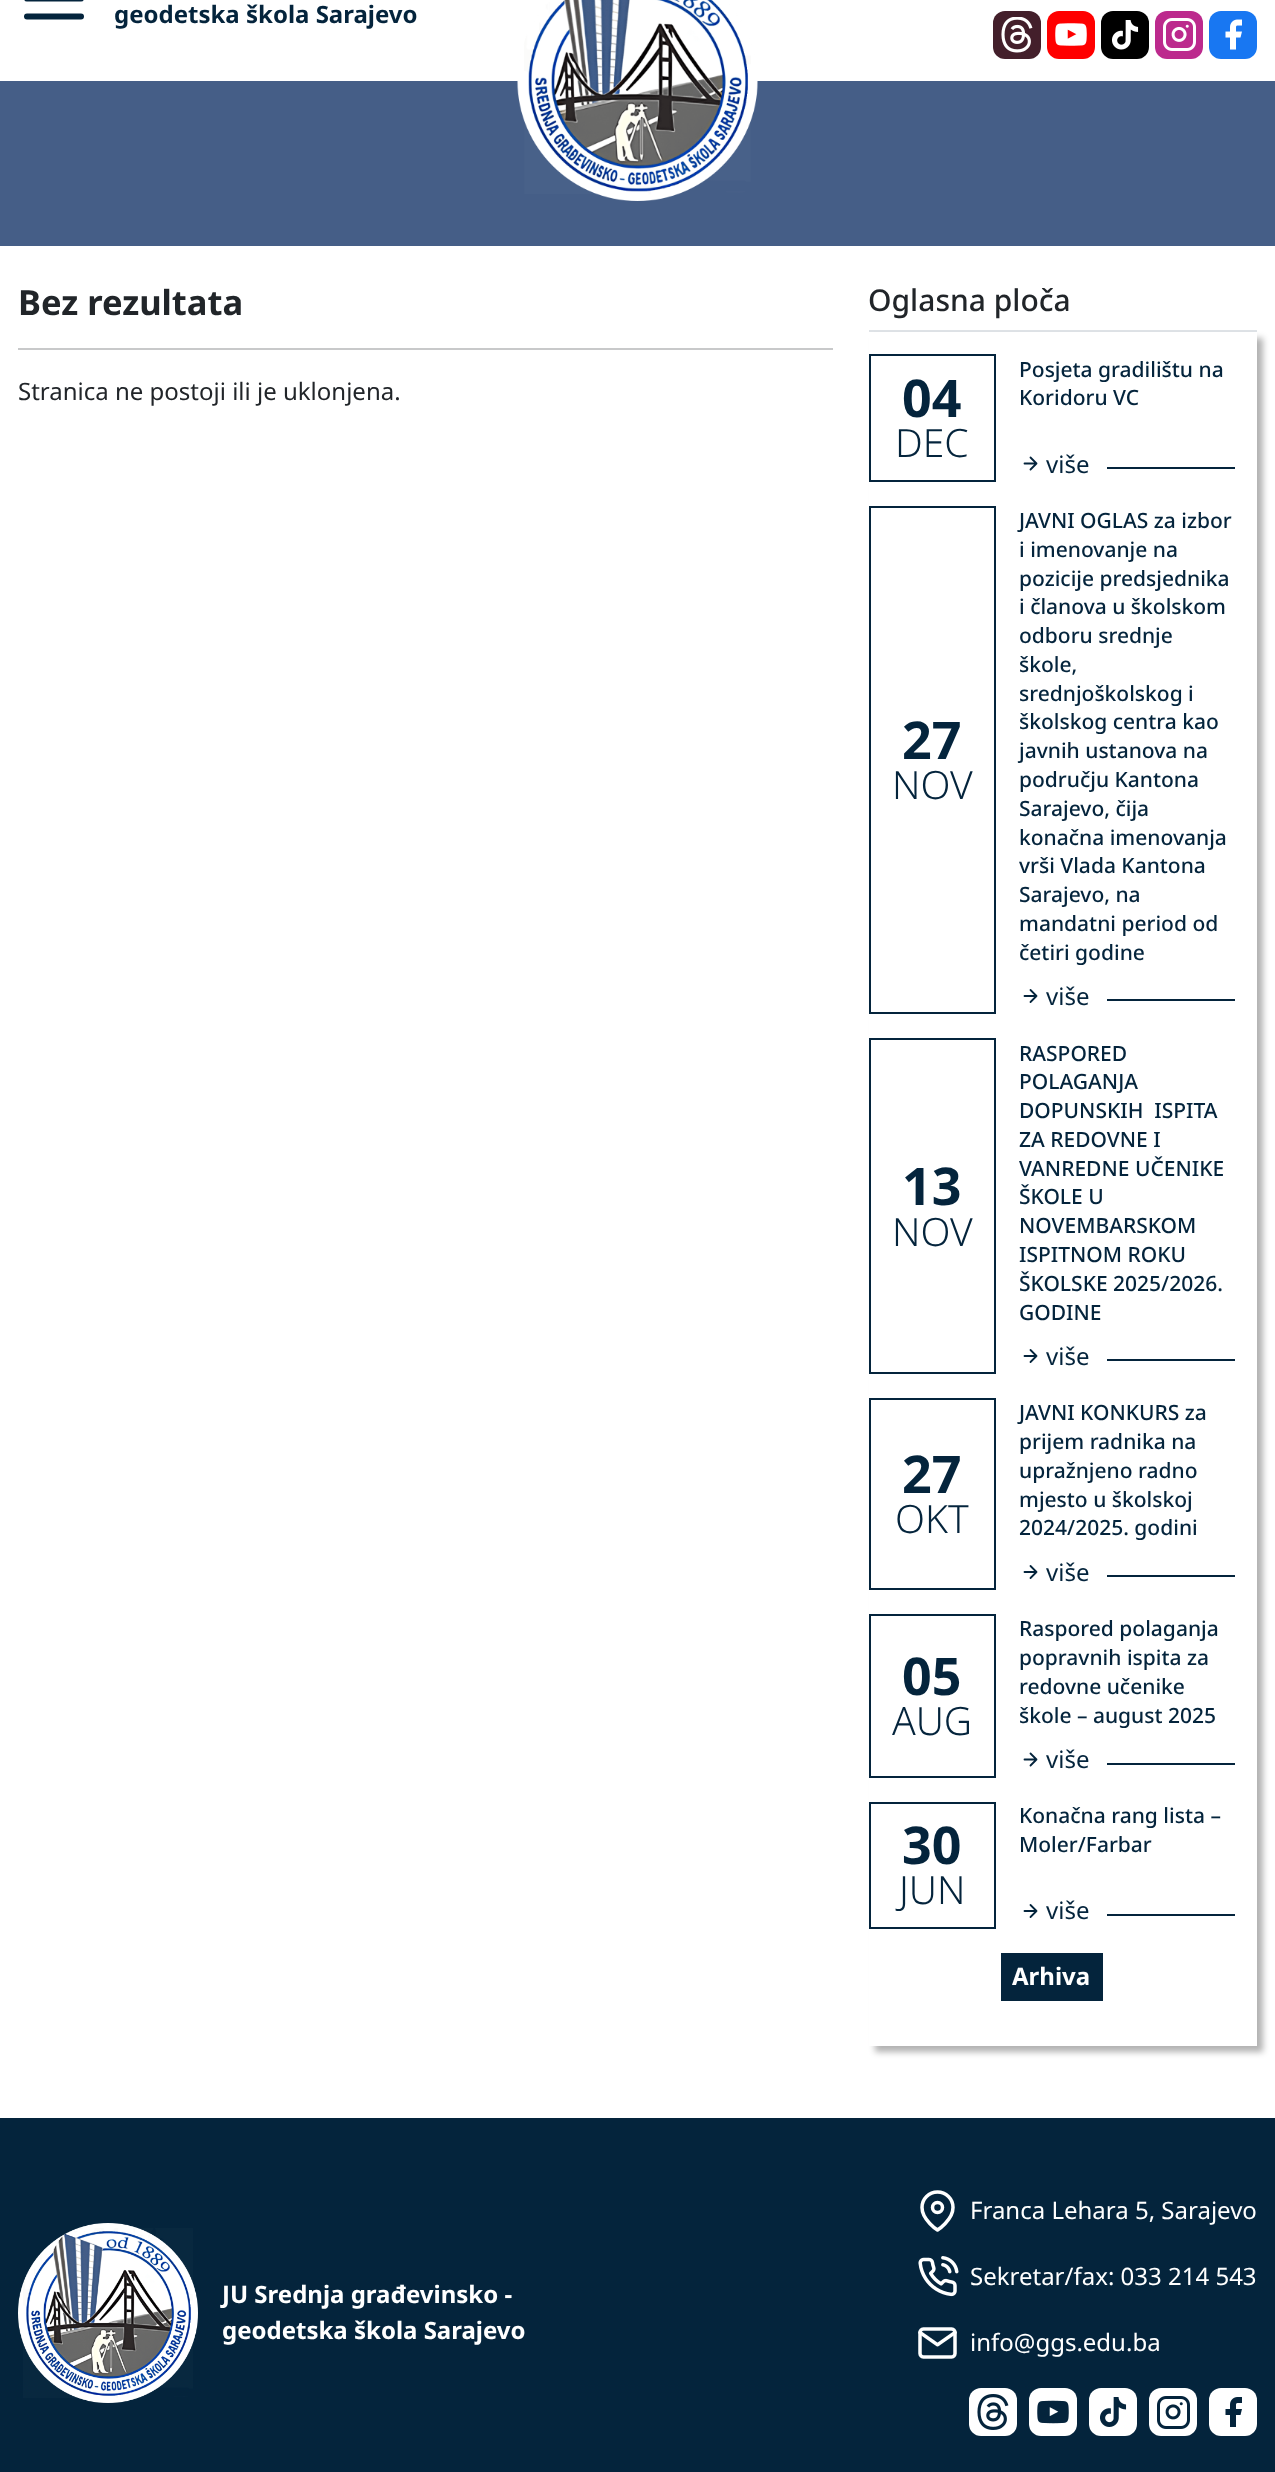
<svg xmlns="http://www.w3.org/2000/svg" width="1275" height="2472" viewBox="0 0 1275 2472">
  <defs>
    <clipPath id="clip1"><path d="M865 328H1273V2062H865ZM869 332H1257V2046H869Z" clip-rule="evenodd"/></clipPath>
    <filter id="blur1" x="-50%" y="-200%" width="200%" height="500%"><feGaussianBlur stdDeviation="3"/></filter>
  </defs>
  <rect width="100%" height="100%" fill="#ffffff"/>
  <path d="M27-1.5H81M27 16.5H81" fill="none" stroke="#04243c" stroke-width="6" stroke-linecap="round" stroke-linejoin="round"/>
  <text x="114" y="23" font-family="Noto Sans" font-size="24" font-weight="bold" fill="#04243c">geodetska škola Sarajevo</text>
  <rect x="0" y="81" width="1275" height="165" fill="#455e87"/>
  <image x="517" y="0" width="241" height="201" href="img1.png"/>
  <rect x="993" y="11" width="48" height="48" rx="12" fill="#431f2b"/>
  <image x="1001" y="17" width="32" height="36" href="img2.png"/>
  <rect x="1047" y="11" width="48" height="48" rx="12" fill="#ff0000"/>
  <image x="1055" y="23" width="32" height="23" href="img3.png"/>
  <rect x="1101" y="11" width="48" height="48" rx="12" fill="#000000"/>
  <image x="1112" y="20" width="27" height="30" href="img4.png"/>
  <rect x="1155" y="11" width="48" height="48" rx="12" fill="#bc2a8d"/>
  <image x="1163" y="18" width="33" height="33" href="img5.png"/>
  <rect x="1209" y="11" width="48" height="48" rx="12" fill="#1877f2"/>
  <image x="1225" y="19" width="17" height="31" href="img6.png"/>
  <text x="18" y="315" font-family="Noto Sans" font-size="34.5" font-weight="bold" fill="#212529">Bez rezultata</text>
  <rect x="18" y="348" width="815" height="2" fill="#c8c9ca"/>
  <text x="18" y="400" font-family="Noto Sans" font-size="24" fill="#212529">Stranica ne postoji ili je uklonjena.</text>
  <rect x="869" y="330" width="388" height="2" fill="#dee2e6"/>
  <text x="868" y="311" font-family="Noto Sans" font-size="30" font-weight="500" fill="#212529">Oglasna ploča</text>
  <g clip-path="url(#clip1)">
    <rect x="875" y="338" width="388" height="1714" fill="#000000" fill-opacity="0.3" filter="url(#blur1)"/>
  </g>
  <rect x="870" y="355" width="125" height="126" fill="none" stroke="#04243c" stroke-width="2"/>
  <text x="902" y="417" font-family="Noto Sans" font-size="52" font-weight="bold" fill="#04243c">04</text>
  <text x="895" y="457" font-family="Noto Sans" font-size="39" font-weight="300" fill="#04243c">DEC</text>
  <text x="1019" y="377" font-family="Noto Sans" font-size="21" font-weight="500" fill="#04243c">Posjeta gradilištu na</text>
  <text x="1019" y="405" font-family="Noto Sans" font-size="21" font-weight="500" fill="#04243c">Koridoru VC</text>
  <path d="M1024.5 463.5H1036.5M1030.5 457.5L1036.5 463.5L1030.5 469.5" fill="none" stroke="#04243c" stroke-width="1.8" stroke-linecap="round" stroke-linejoin="round"/>
  <text x="1046" y="473" font-family="Noto Sans" font-size="24" fill="#04243c">više</text>
  <rect x="1107" y="467" width="128" height="2" fill="#04243c"/>
  <rect x="870" y="507" width="125" height="506" fill="none" stroke="#04243c" stroke-width="2"/>
  <text x="902" y="759" font-family="Noto Sans" font-size="52" font-weight="bold" fill="#04243c">27</text>
  <text x="892" y="799" font-family="Noto Sans" font-size="39" font-weight="300" fill="#04243c">NOV</text>
  <text x="1019" y="528" font-family="Noto Sans" font-size="21" font-weight="500" fill="#04243c">JAVNI OGLAS za izbor</text>
  <text x="1019" y="557" font-family="Noto Sans" font-size="21" font-weight="500" fill="#04243c">i imenovanje na</text>
  <text x="1019" y="586" font-family="Noto Sans" font-size="21" font-weight="500" fill="#04243c">pozicije predsjednika</text>
  <text x="1019" y="614" font-family="Noto Sans" font-size="21" font-weight="500" fill="#04243c">i članova u školskom</text>
  <text x="1019" y="643" font-family="Noto Sans" font-size="21" font-weight="500" fill="#04243c">odboru srednje</text>
  <text x="1019" y="672" font-family="Noto Sans" font-size="21" font-weight="500" fill="#04243c">škole,</text>
  <text x="1019" y="701" font-family="Noto Sans" font-size="21" font-weight="500" fill="#04243c">srednjoškolskog i</text>
  <text x="1019" y="729" font-family="Noto Sans" font-size="21" font-weight="500" fill="#04243c">školskog centra kao</text>
  <text x="1019" y="758" font-family="Noto Sans" font-size="21" font-weight="500" fill="#04243c">javnih ustanova na</text>
  <text x="1019" y="787" font-family="Noto Sans" font-size="21" font-weight="500" fill="#04243c">području Kantona</text>
  <text x="1019" y="816" font-family="Noto Sans" font-size="21" font-weight="500" fill="#04243c">Sarajevo, čija</text>
  <text x="1019" y="845" font-family="Noto Sans" font-size="21" font-weight="500" fill="#04243c">konačna imenovanja</text>
  <text x="1019" y="873" font-family="Noto Sans" font-size="21" font-weight="500" fill="#04243c">vrši Vlada Kantona</text>
  <text x="1019" y="902" font-family="Noto Sans" font-size="21" font-weight="500" fill="#04243c">Sarajevo, na</text>
  <text x="1019" y="931" font-family="Noto Sans" font-size="21" font-weight="500" fill="#04243c">mandatni period od</text>
  <text x="1019" y="960" font-family="Noto Sans" font-size="21" font-weight="500" fill="#04243c">četiri godine</text>
  <path d="M1024.5 996H1036.5M1030.5 990L1036.5 996L1030.5 1002" fill="none" stroke="#04243c" stroke-width="1.8" stroke-linecap="round" stroke-linejoin="round"/>
  <text x="1046" y="1005" font-family="Noto Sans" font-size="24" fill="#04243c">više</text>
  <rect x="1107" y="999" width="128" height="2" fill="#04243c"/>
  <rect x="870" y="1039" width="125" height="334" fill="none" stroke="#04243c" stroke-width="2"/>
  <text x="902" y="1205" font-family="Noto Sans" font-size="52" font-weight="bold" fill="#04243c">13</text>
  <text x="892" y="1246" font-family="Noto Sans" font-size="39" font-weight="300" fill="#04243c">NOV</text>
  <text x="1019" y="1061" font-family="Noto Sans" font-size="21" font-weight="500" fill="#04243c">RASPORED</text>
  <text x="1019" y="1089" font-family="Noto Sans" font-size="21" font-weight="500" fill="#04243c">POLAGANJA</text>
  <text x="1019" y="1118" font-family="Noto Sans" font-size="21" font-weight="500" fill="#04243c" xml:space="preserve">DOPUNSKIH  ISPITA</text>
  <text x="1019" y="1147" font-family="Noto Sans" font-size="21" font-weight="500" fill="#04243c">ZA REDOVNE I</text>
  <text x="1019" y="1176" font-family="Noto Sans" font-size="21" font-weight="500" fill="#04243c">VANREDNE UČENIKE</text>
  <text x="1019" y="1204" font-family="Noto Sans" font-size="21" font-weight="500" fill="#04243c">ŠKOLE U</text>
  <text x="1019" y="1233" font-family="Noto Sans" font-size="21" font-weight="500" fill="#04243c">NOVEMBARSKOM</text>
  <text x="1019" y="1262" font-family="Noto Sans" font-size="21" font-weight="500" fill="#04243c">ISPITNOM ROKU</text>
  <text x="1019" y="1291" font-family="Noto Sans" font-size="21" font-weight="500" fill="#04243c">ŠKOLSKE 2025/2026.</text>
  <text x="1019" y="1320" font-family="Noto Sans" font-size="21" font-weight="500" fill="#04243c">GODINE</text>
  <path d="M1024.5 1356H1036.5M1030.5 1350L1036.5 1356L1030.5 1362" fill="none" stroke="#04243c" stroke-width="1.8" stroke-linecap="round" stroke-linejoin="round"/>
  <text x="1046" y="1365" font-family="Noto Sans" font-size="24" fill="#04243c">više</text>
  <rect x="1107" y="1359" width="128" height="2" fill="#04243c"/>
  <rect x="870" y="1399" width="125" height="190" fill="none" stroke="#04243c" stroke-width="2"/>
  <text x="902" y="1493" font-family="Noto Sans" font-size="52" font-weight="bold" fill="#04243c">27</text>
  <text x="895" y="1533" font-family="Noto Sans" font-size="39" font-weight="300" fill="#04243c">OKT</text>
  <text x="1019" y="1420" font-family="Noto Sans" font-size="21" font-weight="500" fill="#04243c">JAVNI KONKURS za</text>
  <text x="1019" y="1449" font-family="Noto Sans" font-size="21" font-weight="500" fill="#04243c">prijem radnika na</text>
  <text x="1019" y="1478" font-family="Noto Sans" font-size="21" font-weight="500" fill="#04243c">upražnjeno radno</text>
  <text x="1019" y="1507" font-family="Noto Sans" font-size="21" font-weight="500" fill="#04243c">mjesto u školskoj</text>
  <text x="1019" y="1535" font-family="Noto Sans" font-size="21" font-weight="500" fill="#04243c">2024/2025. godini</text>
  <path d="M1024.5 1572H1036.5M1030.5 1566L1036.5 1572L1030.5 1578" fill="none" stroke="#04243c" stroke-width="1.8" stroke-linecap="round" stroke-linejoin="round"/>
  <text x="1046" y="1581" font-family="Noto Sans" font-size="24" fill="#04243c">više</text>
  <rect x="1107" y="1575" width="128" height="2" fill="#04243c"/>
  <rect x="870" y="1615" width="125" height="162" fill="none" stroke="#04243c" stroke-width="2"/>
  <text x="902" y="1695" font-family="Noto Sans" font-size="52" font-weight="bold" fill="#04243c">05</text>
  <text x="892" y="1735" font-family="Noto Sans" font-size="39" font-weight="300" fill="#04243c">AUG</text>
  <text x="1019" y="1636" font-family="Noto Sans" font-size="21" font-weight="500" fill="#04243c">Raspored polaganja</text>
  <text x="1019" y="1665" font-family="Noto Sans" font-size="21" font-weight="500" fill="#04243c">popravnih ispita za</text>
  <text x="1019" y="1694" font-family="Noto Sans" font-size="21" font-weight="500" fill="#04243c">redovne učenike</text>
  <text x="1019" y="1723" font-family="Noto Sans" font-size="21" font-weight="500" fill="#04243c">škole – august 2025</text>
  <path d="M1024.5 1759.5H1036.5M1030.5 1753.5L1036.5 1759.5L1030.5 1765.5" fill="none" stroke="#04243c" stroke-width="1.8" stroke-linecap="round" stroke-linejoin="round"/>
  <text x="1046" y="1768" font-family="Noto Sans" font-size="24" fill="#04243c">više</text>
  <rect x="1107" y="1763" width="128" height="2" fill="#04243c"/>
  <rect x="870" y="1803" width="125" height="125" fill="none" stroke="#04243c" stroke-width="2"/>
  <text x="902" y="1864" font-family="Noto Sans" font-size="52" font-weight="bold" fill="#04243c">30</text>
  <text x="899" y="1904" font-family="Noto Sans" font-size="39" font-weight="300" fill="#04243c">JUN</text>
  <text x="1019" y="1823" font-family="Noto Sans" font-size="21" font-weight="500" fill="#04243c">Konačna rang lista –</text>
  <text x="1019" y="1852" font-family="Noto Sans" font-size="21" font-weight="500" fill="#04243c">Moler/Farbar</text>
  <path d="M1024.5 1911H1036.5M1030.5 1905L1036.5 1911L1030.5 1917" fill="none" stroke="#04243c" stroke-width="1.8" stroke-linecap="round" stroke-linejoin="round"/>
  <text x="1046" y="1919" font-family="Noto Sans" font-size="24" fill="#04243c">više</text>
  <rect x="1107" y="1914" width="128" height="2" fill="#04243c"/>
  <rect x="1001" y="1953" width="102" height="48" fill="#04243c"/>
  <text x="1012" y="1985" font-family="Noto Sans" font-size="24" font-weight="bold" fill="#ffffff">Arhiva</text>
  <rect x="0" y="2118" width="1275" height="354" fill="#04243c"/>
  <image x="18" y="2223" width="180" height="180" href="img7.png"/>
  <text x="222" y="2303" font-family="Noto Sans" font-size="24" font-weight="bold" fill="#ffffff">JU Srednja građevinsko -</text>
  <text x="222" y="2339" font-family="Noto Sans" font-size="24" font-weight="bold" fill="#ffffff">geodetska škola Sarajevo</text>
  <path d="M953 2207.5C953 2220 937.5 2230 937.5 2230C937.5 2230 922 2220 922 2207.5C922 2199 929 2192 937.5 2192C946 2192 953 2199 953 2207.5Z" fill="none" stroke="#ffffff" stroke-width="3.5" stroke-linecap="round" stroke-linejoin="round"/>
  <circle cx="937.5" cy="2207.5" r="5" fill="none" stroke="#ffffff" stroke-width="3.5"/>
  <text x="970" y="2219" font-family="Noto Sans" font-size="24" fill="#ffffff">Franca Lehara 5, Sarajevo</text>
  <image x="918" y="2256" width="41" height="41" href="img8.png"/>
  <text x="970" y="2285" font-family="Noto Sans" font-size="24" fill="#ffffff">Sekretar/fax: 033 214 543</text>
  <image x="918" y="2327" width="39" height="32" href="img9.png"/>
  <text x="970" y="2351" font-family="Noto Sans" font-size="24" fill="#ffffff">info@ggs.edu.ba</text>
  <rect x="969" y="2388" width="48" height="48" rx="12" fill="#ffffff"/>
  <image x="977" y="2394" width="32" height="36" href="img10.png"/>
  <rect x="1029" y="2388" width="48" height="48" rx="12" fill="#ffffff"/>
  <image x="1037" y="2400" width="32" height="24" href="img11.png"/>
  <rect x="1089" y="2388" width="48" height="48" rx="12" fill="#ffffff"/>
  <image x="1100" y="2397" width="27" height="30" href="img12.png"/>
  <rect x="1149" y="2388" width="48" height="48" rx="12" fill="#ffffff"/>
  <image x="1157" y="2396" width="33" height="33" href="img13.png"/>
  <rect x="1209" y="2388" width="48" height="48" rx="12" fill="#ffffff"/>
  <image x="1225" y="2397" width="17" height="30" href="img14.png"/>
</svg>
